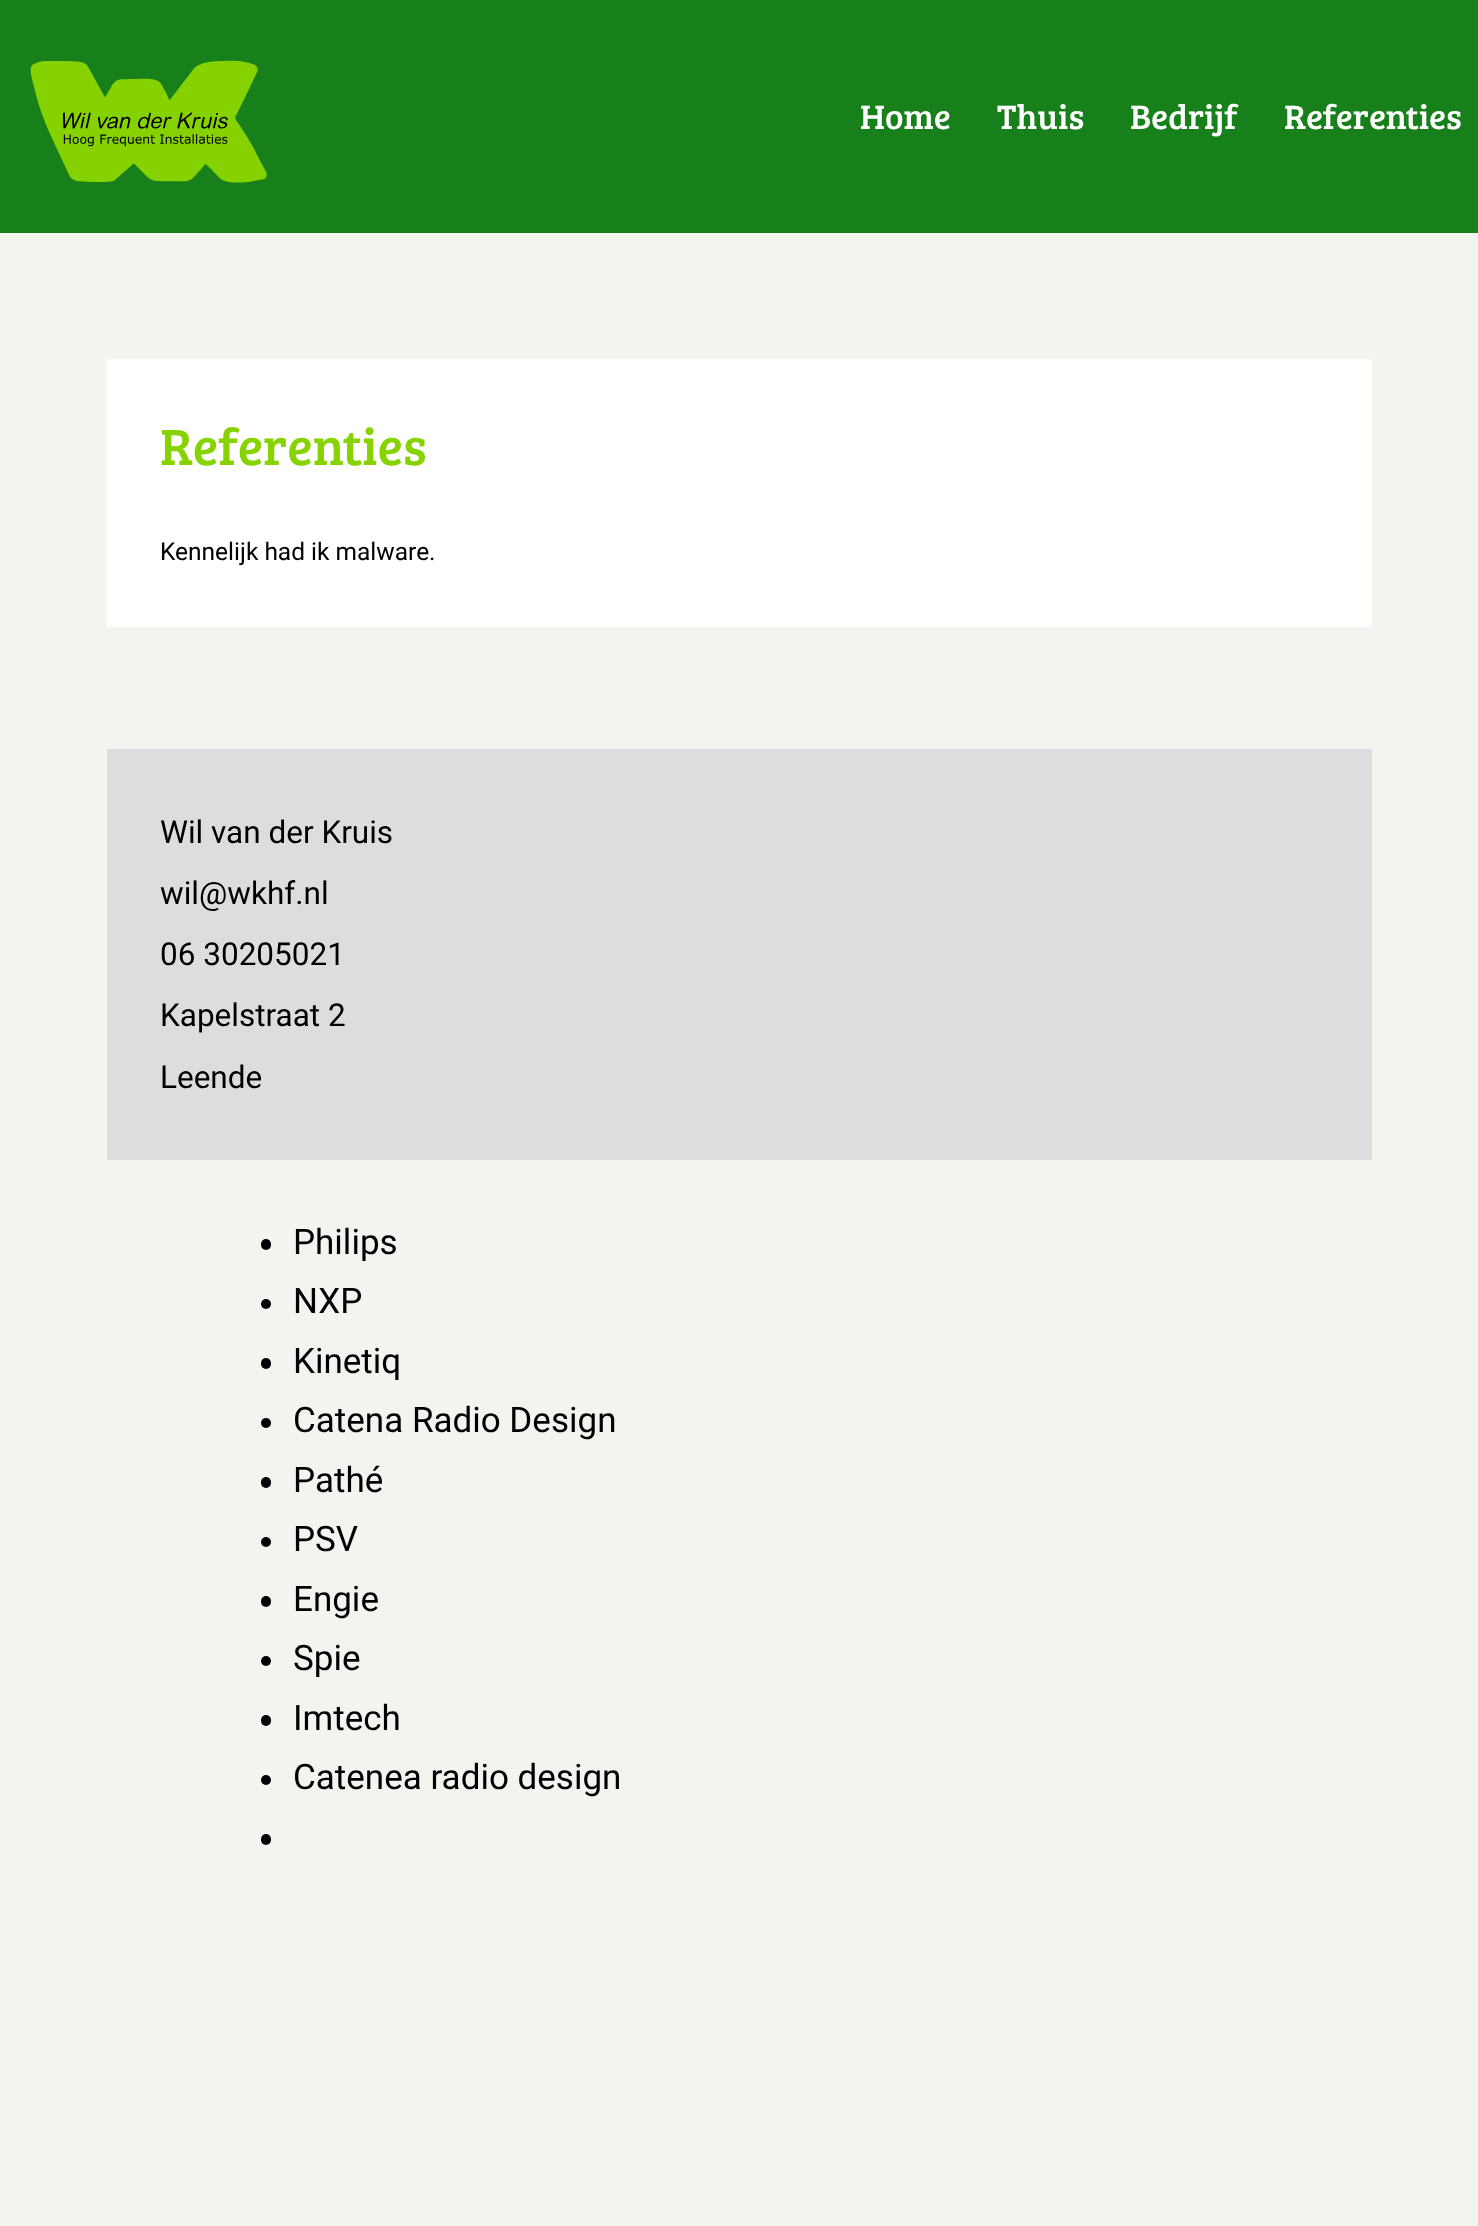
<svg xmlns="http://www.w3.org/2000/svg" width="1478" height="2226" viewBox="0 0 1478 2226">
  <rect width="100%" height="100%" fill="#f2f4ef"/>
  <rect x="0" y="0" width="1478" height="233" fill="#17801b"/>
  <image x="30" y="60" width="237" height="123" href="img1.png"/>
  <text x="860" y="129" font-family="Bree Serif" font-size="35" fill="#ffffff">Home</text>
  <text x="997" y="129" font-family="Bree Serif" font-size="35" fill="#ffffff">Thuis</text>
  <text x="1130" y="129" font-family="Bree Serif" font-size="35" fill="#ffffff">Bedrijf</text>
  <text x="1284" y="129" font-family="Bree Serif" font-size="35" fill="#ffffff">Referenties</text>
  <rect x="107" y="359" width="1265" height="268" fill="#ffffff"/>
  <text x="160" y="465" font-family="Bree Serif" font-size="52.5" fill="#87d300">Referenties</text>
  <text x="160" y="560" font-family="Roboto" font-size="24.5" fill="#000000">Kennelijk had ik malware.</text>
  <rect x="107" y="749" width="1265" height="411" fill="#dddddd"/>
  <text x="160" y="843" font-family="Roboto" font-size="31.5" fill="#000000">Wil van der Kruis</text>
  <text x="160" y="904" font-family="Roboto" font-size="31.5" fill="#000000">wil@wkhf.nl</text>
  <text x="160" y="965" font-family="Roboto" font-size="31.5" fill="#000000">06 30205021</text>
  <text x="160" y="1026" font-family="Roboto" font-size="31.5" fill="#000000">Kapelstraat 2</text>
  <text x="160" y="1088" font-family="Roboto" font-size="31.5" fill="#000000">Leende</text>
  <rect x="261" y="1239" width="10" height="11" rx="5" fill="#000000"/>
  <text x="293" y="1254" font-family="Roboto" font-size="35" fill="#000000">Philips</text>
  <circle cx="266" cy="1304" r="5" fill="#000000"/>
  <text x="293" y="1313" font-family="Roboto" font-size="35" fill="#000000">NXP</text>
  <rect x="261" y="1358" width="10" height="11" rx="5" fill="#000000"/>
  <text x="293" y="1373" font-family="Roboto" font-size="35" fill="#000000">Kinetiq</text>
  <circle cx="266" cy="1423" r="5" fill="#000000"/>
  <text x="293" y="1432" font-family="Roboto" font-size="35" fill="#000000">Catena Radio Design</text>
  <rect x="261" y="1477" width="10" height="11" rx="5" fill="#000000"/>
  <text x="293" y="1492" font-family="Roboto" font-size="35" fill="#000000">Pathé</text>
  <circle cx="266" cy="1542" r="5" fill="#000000"/>
  <text x="293" y="1551" font-family="Roboto" font-size="35" fill="#000000">PSV</text>
  <rect x="261" y="1596" width="10" height="11" rx="5" fill="#000000"/>
  <text x="293" y="1611" font-family="Roboto" font-size="35" fill="#000000">Engie</text>
  <circle cx="266" cy="1661" r="5" fill="#000000"/>
  <text x="293" y="1670" font-family="Roboto" font-size="35" fill="#000000">Spie</text>
  <rect x="261" y="1715" width="10" height="11" rx="5" fill="#000000"/>
  <text x="293" y="1730" font-family="Roboto" font-size="35" fill="#000000">Imtech</text>
  <circle cx="266" cy="1780" r="5" fill="#000000"/>
  <text x="293" y="1789" font-family="Roboto" font-size="35" fill="#000000">Catenea radio design</text>
  <rect x="261" y="1834" width="10" height="11" rx="5" fill="#000000"/>
</svg>
